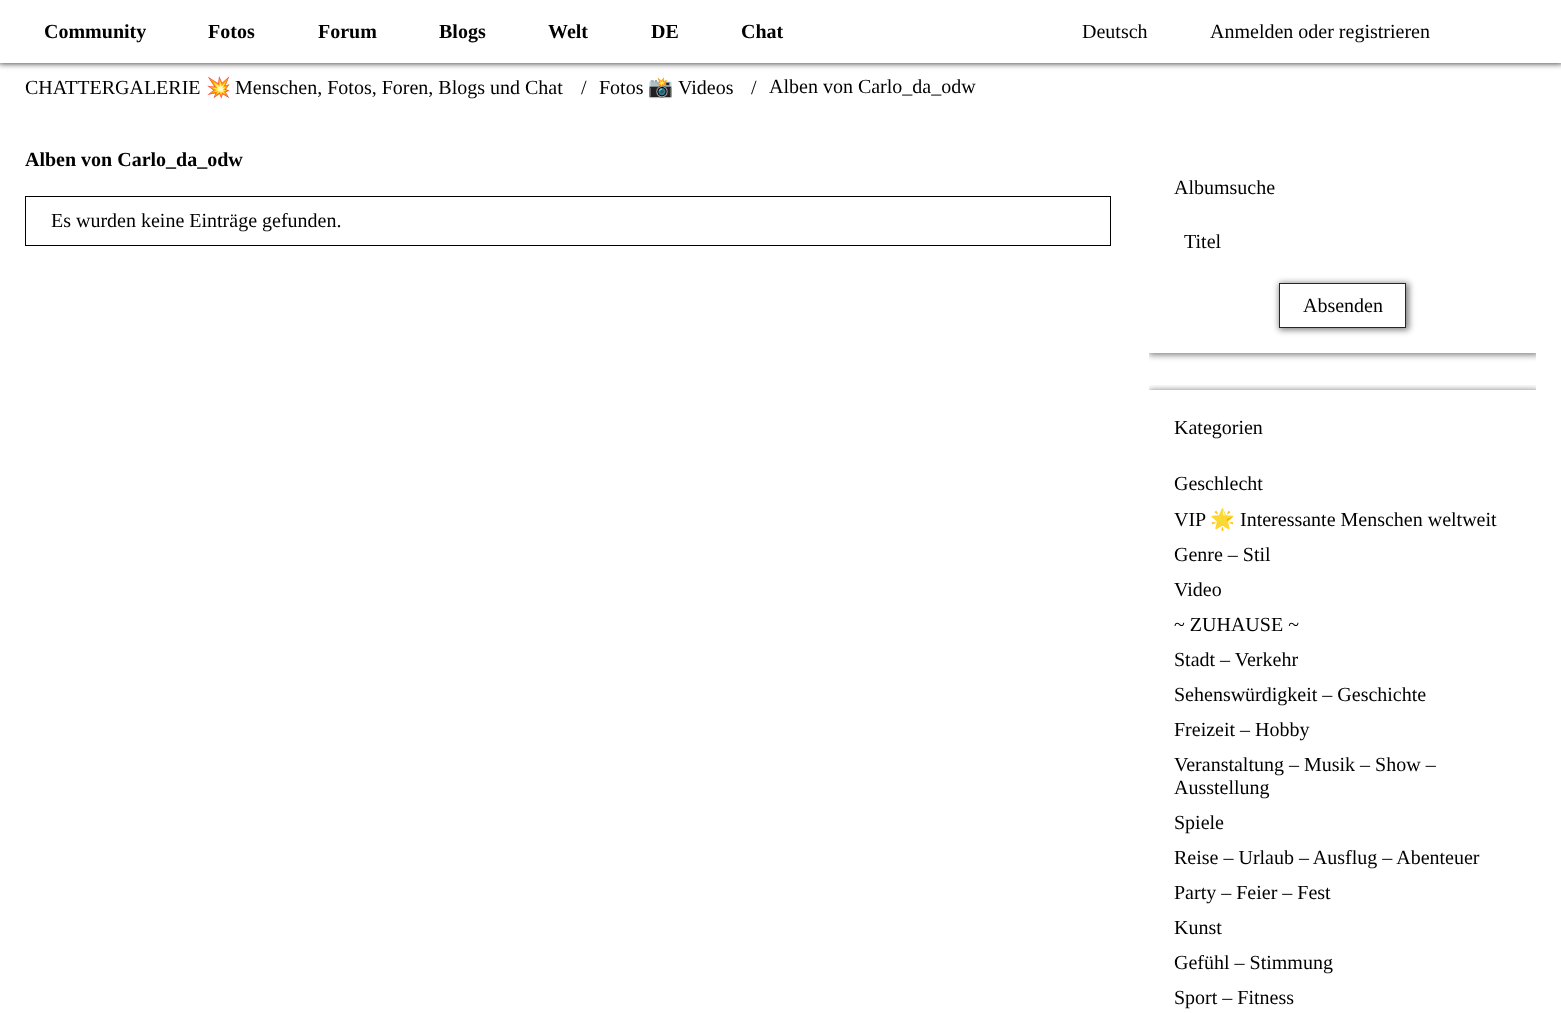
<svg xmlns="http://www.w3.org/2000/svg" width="1561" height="1013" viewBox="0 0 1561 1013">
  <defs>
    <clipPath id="clip1"><path d="M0 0H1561V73H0ZM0 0H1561V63H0Z" clip-rule="evenodd"/></clipPath>
    <filter id="blur1" x="-50%" y="-200%" width="200%" height="500%"><feGaussianBlur stdDeviation="3"/></filter>
    <clipPath id="clip2"><rect x="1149" y="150" width="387" height="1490"/></clipPath>
    <clipPath id="clip3"><path d="M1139 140H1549V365H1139ZM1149 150H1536V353H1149Z" clip-rule="evenodd"/></clipPath>
    <clipPath id="clip4"><path d="M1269 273H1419V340H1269ZM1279 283H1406V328H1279Z" clip-rule="evenodd"/></clipPath>
    <clipPath id="clip5"><rect x="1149" y="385" width="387" height="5"/></clipPath>
  </defs>
  <rect width="100%" height="100%" fill="#ffffff"/>
  <g clip-path="url(#clip1)">
    <rect x="-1" y="-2" width="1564" height="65" fill="#000000" fill-opacity="0.5" filter="url(#blur1)"/>
    <rect x="-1" y="-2" width="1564" height="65" fill="#000000" fill-opacity="0.5" filter="url(#blur1)"/>
  </g>
  <text x="44" y="38" font-family="Liberation Serif" font-size="20" font-weight="bold" fill="#000000">Community</text>
  <text x="208" y="38" font-family="Liberation Serif" font-size="20" font-weight="bold" fill="#000000">Fotos</text>
  <text x="318" y="38" font-family="Liberation Serif" font-size="20" font-weight="bold" fill="#000000">Forum</text>
  <text x="439" y="38" font-family="Liberation Serif" font-size="20" font-weight="bold" fill="#000000">Blogs</text>
  <text x="548" y="38" font-family="Liberation Serif" font-size="20" font-weight="bold" fill="#000000">Welt</text>
  <text x="651" y="38" font-family="Liberation Serif" font-size="20" font-weight="bold" fill="#000000">DE</text>
  <text x="741" y="38" font-family="Liberation Serif" font-size="20" font-weight="bold" fill="#000000">Chat</text>
  <text x="1082" y="38" font-family="Liberation Serif" font-size="20" fill="#000000">Deutsch</text>
  <text x="1210" y="38" font-family="Liberation Serif" font-size="20" fill="#000000">Anmelden oder registrieren</text>
  <text x="25" y="94" font-family="Liberation Serif" font-size="20" fill="#000000">CHATTERGALERIE</text>
  <text x="206" y="94" font-family="Noto Color Emoji" font-size="20" fill="#000000">💥</text>
  <text x="235" y="94" font-family="Liberation Serif" font-size="20" fill="#000000">Menschen, Fotos, Foren, Blogs und Chat</text>
  <text x="581" y="94" font-family="Liberation Serif" font-size="20" fill="#000000">/</text>
  <text x="599" y="94" font-family="Liberation Serif" font-size="20" fill="#000000">Fotos</text>
  <text x="648" y="94" font-family="Noto Color Emoji" font-size="20" fill="#000000">📸</text>
  <text x="678" y="94" font-family="Liberation Serif" font-size="20" fill="#000000">Videos</text>
  <text x="751" y="94" font-family="Liberation Serif" font-size="20" fill="#000000">/</text>
  <text x="769" y="93" font-family="Liberation Serif" font-size="20" fill="#000000">Alben von Carlo_da_odw</text>
  <text x="25" y="166" font-family="Liberation Serif" font-size="20" font-weight="bold" fill="#000000">Alben von Carlo_da_odw</text>
  <rect x="25.5" y="196.5" width="1085" height="49" fill="none" stroke="#000000"/>
  <text x="51" y="227" font-family="Liberation Serif" font-size="20" fill="#000000">Es wurden keine Einträge gefunden.</text>
  <g clip-path="url(#clip2)">
    <g clip-path="url(#clip3)">
      <rect x="1149" y="150" width="390" height="205" fill="#000000" fill-opacity="0.5" filter="url(#blur1)"/>
    </g>
  </g>
  <text x="1174" y="194" font-family="Liberation Serif" font-size="20" fill="#000000">Albumsuche</text>
  <text x="1184" y="248" font-family="Liberation Serif" font-size="20" fill="#000000">Titel</text>
  <g clip-path="url(#clip4)">
    <rect x="1279" y="283" width="130" height="47" fill="#000000" fill-opacity="0.5" filter="url(#blur1)"/>
  </g>
  <rect x="1279.5" y="283.5" width="126" height="44" fill="none" stroke="#042e55"/>
  <text x="1303" y="312" font-family="Liberation Serif" font-size="20" fill="#000000">Absenden</text>
  <g clip-path="url(#clip2)">
    <g clip-path="url(#clip5)">
      <rect x="1149" y="390" width="390" height="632" fill="#000000" fill-opacity="0.5" filter="url(#blur1)"/>
    </g>
  </g>
  <text x="1174" y="434" font-family="Liberation Serif" font-size="20" fill="#000000">Kategorien</text>
  <text x="1174" y="490" font-family="Liberation Serif" font-size="20" fill="#000000">Geschlecht</text>
  <text x="1174" y="526" font-family="Liberation Serif" font-size="20" fill="#000000">VIP</text>
  <text x="1210" y="526" font-family="Noto Color Emoji" font-size="20" fill="#000000">🌟</text>
  <text x="1240" y="526" font-family="Liberation Serif" font-size="20" fill="#000000">Interessante Menschen weltweit</text>
  <text x="1174" y="561" font-family="Liberation Serif" font-size="20" fill="#000000">Genre – Stil</text>
  <text x="1174" y="596" font-family="Liberation Serif" font-size="20" fill="#000000">Video</text>
  <text x="1174" y="631" font-family="Liberation Serif" font-size="20" fill="#000000">~ ZUHAUSE ~</text>
  <text x="1174" y="666" font-family="Liberation Serif" font-size="20" fill="#000000">Stadt – Verkehr</text>
  <text x="1174" y="701" font-family="Liberation Serif" font-size="20" fill="#000000">Sehenswürdigkeit – Geschichte</text>
  <text x="1174" y="736" font-family="Liberation Serif" font-size="20" fill="#000000">Freizeit – Hobby</text>
  <text x="1174" y="771" font-family="Liberation Serif" font-size="20" fill="#000000">Veranstaltung – Musik – Show –</text>
  <text x="1174" y="794" font-family="Liberation Serif" font-size="20" fill="#000000">Ausstellung</text>
  <text x="1174" y="829" font-family="Liberation Serif" font-size="20" fill="#000000">Spiele</text>
  <text x="1174" y="864" font-family="Liberation Serif" font-size="20" fill="#000000">Reise – Urlaub – Ausflug – Abenteuer</text>
  <text x="1174" y="899" font-family="Liberation Serif" font-size="20" fill="#000000">Party – Feier – Fest</text>
  <text x="1174" y="934" font-family="Liberation Serif" font-size="20" fill="#000000">Kunst</text>
  <text x="1174" y="969" font-family="Liberation Serif" font-size="20" fill="#000000">Gefühl – Stimmung</text>
  <text x="1174" y="1004" font-family="Liberation Serif" font-size="20" fill="#000000">Sport – Fitness</text>
</svg>
